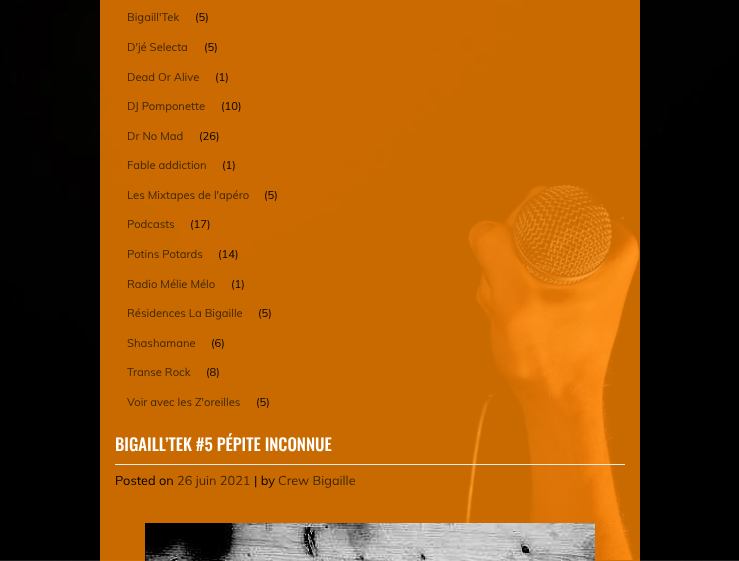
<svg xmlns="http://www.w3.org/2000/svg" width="739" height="561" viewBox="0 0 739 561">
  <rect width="100%" height="100%" fill="#ffffff"/>
  <image x="0" y="0" width="739" height="561" href="img1.png"/>
  <rect x="100" y="0" width="540" height="434" fill="#fb8500" fill-opacity="0.8"/>
  <text x="127" y="21" font-family="Muli" font-size="11.25" fill="#3f2701">Bigaill'Tek</text>
  <text x="195" y="21" font-family="Muli" font-size="11.25" fill="#000000">(5)</text>
  <text x="127" y="51" font-family="Muli" font-size="11.25" fill="#3f2701">D'jé Selecta</text>
  <text x="204" y="51" font-family="Muli" font-size="11.25" fill="#000000">(5)</text>
  <text x="127" y="81" font-family="Muli" font-size="11.25" fill="#3f2701">Dead Or Alive</text>
  <text x="215" y="81" font-family="Muli" font-size="11.25" fill="#000000">(1)</text>
  <text x="127" y="110" font-family="Muli" font-size="11.25" fill="#3f2701">DJ Pomponette</text>
  <text x="221" y="110" font-family="Muli" font-size="11.25" fill="#000000">(10)</text>
  <text x="127" y="140" font-family="Muli" font-size="11.25" fill="#3f2701">Dr No Mad</text>
  <text x="199" y="140" font-family="Muli" font-size="11.25" fill="#000000">(26)</text>
  <text x="127" y="169" font-family="Muli" font-size="11.25" fill="#3f2701">Fable addiction</text>
  <text x="222" y="169" font-family="Muli" font-size="11.25" fill="#000000">(1)</text>
  <text x="127" y="199" font-family="Muli" font-size="11.25" fill="#3f2701">Les Mixtapes de l'apéro</text>
  <text x="264" y="199" font-family="Muli" font-size="11.25" fill="#000000">(5)</text>
  <text x="127" y="228" font-family="Muli" font-size="11.25" fill="#3f2701">Podcasts</text>
  <text x="190" y="228" font-family="Muli" font-size="11.25" fill="#000000">(17)</text>
  <text x="127" y="258" font-family="Muli" font-size="11.25" fill="#3f2701">Potins Potards</text>
  <text x="218" y="258" font-family="Muli" font-size="11.25" fill="#000000">(14)</text>
  <text x="127" y="288" font-family="Muli" font-size="11.25" fill="#3f2701">Radio Mélie Mélo</text>
  <text x="231" y="288" font-family="Muli" font-size="11.25" fill="#000000">(1)</text>
  <text x="127" y="317" font-family="Muli" font-size="11.25" fill="#3f2701">Résidences La Bigaille</text>
  <text x="258" y="317" font-family="Muli" font-size="11.25" fill="#000000">(5)</text>
  <text x="127" y="347" font-family="Muli" font-size="11.25" fill="#3f2701">Shashamane</text>
  <text x="211" y="347" font-family="Muli" font-size="11.25" fill="#000000">(6)</text>
  <text x="127" y="376" font-family="Muli" font-size="11.25" fill="#3f2701">Transe Rock</text>
  <text x="206" y="376" font-family="Muli" font-size="11.25" fill="#000000">(8)</text>
  <text x="127" y="406" font-family="Muli" font-size="11.25" fill="#3f2701">Voir avec les Z'oreilles</text>
  <text x="256" y="406" font-family="Muli" font-size="11.25" fill="#000000">(5)</text>
  <rect x="100" y="434" width="540" height="127" fill="#fb8500" fill-opacity="0.8"/>
  <rect x="115" y="464" width="510" height="1" fill="#eaecef"/>
  <text x="115" y="451" font-family="Oswald" font-size="16.75" font-weight="500" fill="#ffffff">BIGAILL’TEK #5 PÉPITE INCONNUE</text>
  <text x="115" y="485" font-family="Muli" font-size="12.75" fill="#000000">Posted on</text>
  <text x="177" y="485" font-family="Muli" font-size="12.75" fill="#3f2701">26 juin 2021</text>
  <text x="254" y="485" font-family="Muli" font-size="12.75" fill="#000000">| by</text>
  <text x="278" y="485" font-family="Muli" font-size="12.75" fill="#3f2701">Crew Bigaille</text>
  <image x="145" y="523" width="450" height="38" href="img2.png"/>
</svg>
